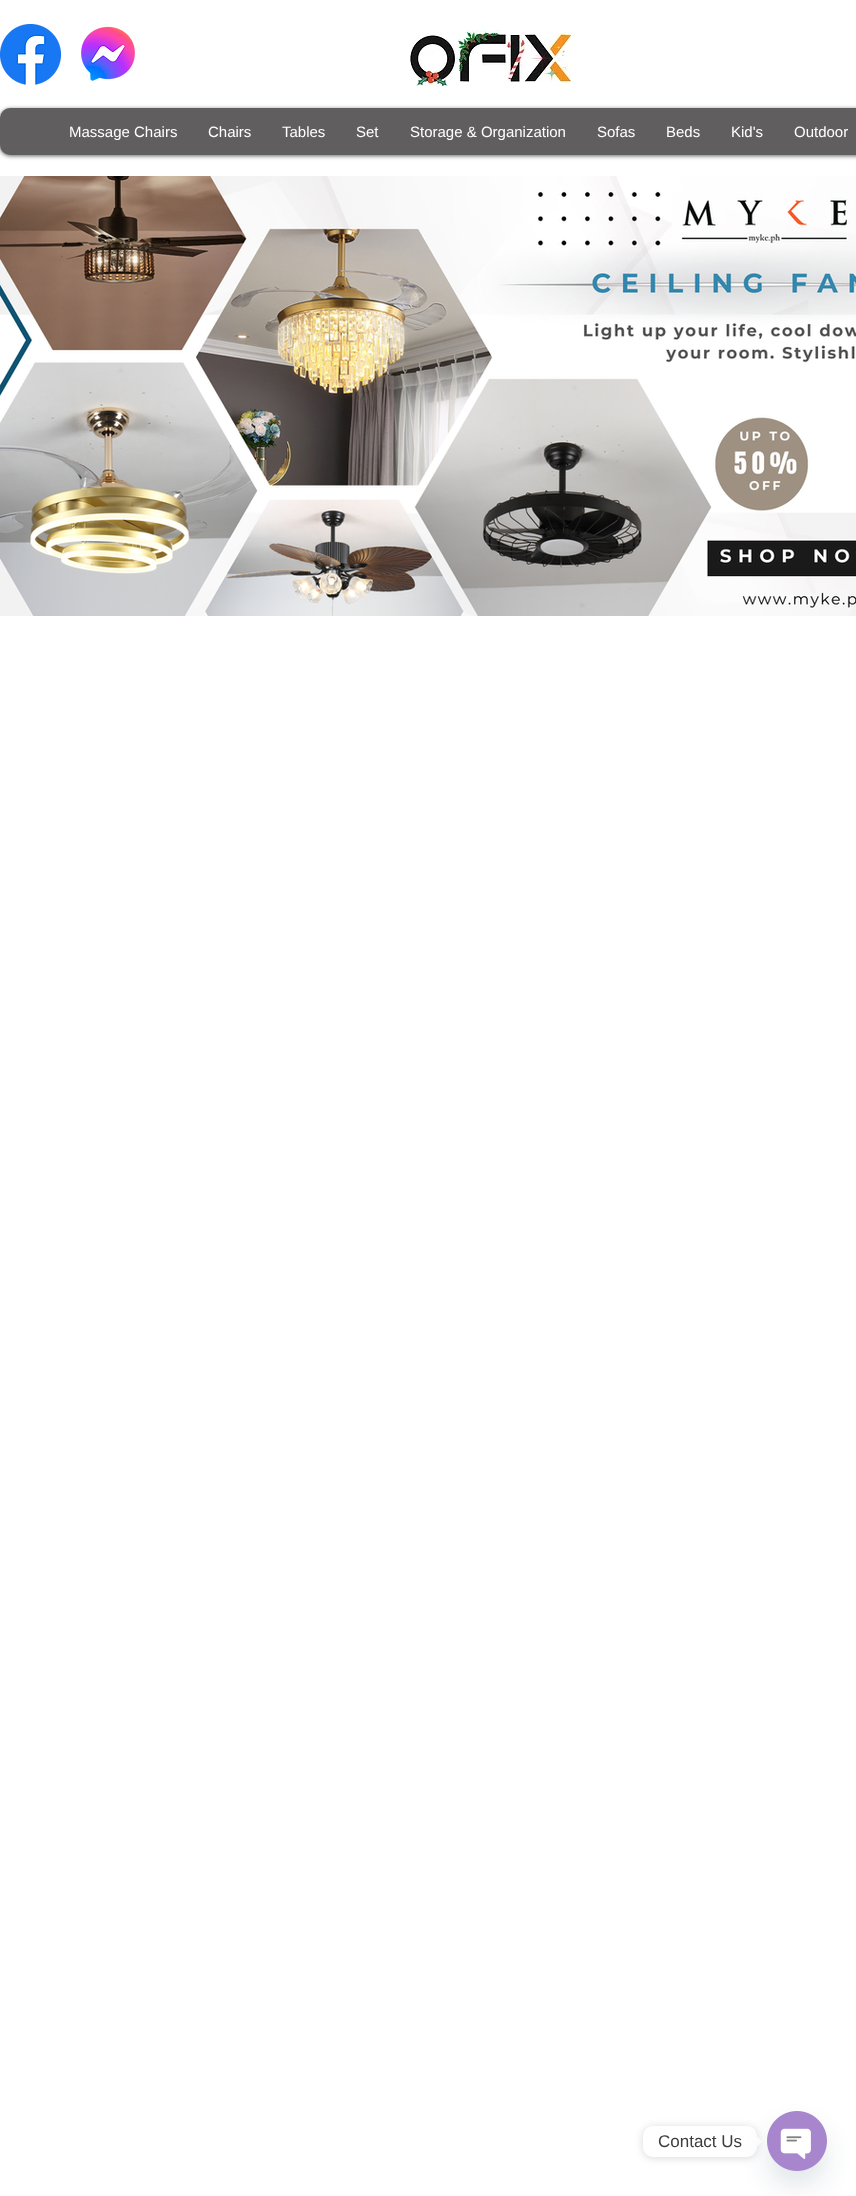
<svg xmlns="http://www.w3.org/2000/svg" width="856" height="2196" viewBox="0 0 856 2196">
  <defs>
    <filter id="blur1" x="-50%" y="-200%" width="200%" height="500%"><feGaussianBlur stdDeviation="2"/></filter>
    <filter id="blur2" x="-50%" y="-200%" width="200%" height="500%"><feGaussianBlur stdDeviation="4"/></filter>
    <filter id="blur3" x="-50%" y="-200%" width="200%" height="500%"><feGaussianBlur stdDeviation="12"/></filter>
  </defs>
  <rect width="100%" height="100%" fill="#ffffff"/>
  <image x="0" y="24" width="61" height="61" href="img1.png"/>
  <image x="81" y="26" width="54" height="55" href="img2.png"/>
  <image x="410" y="30" width="164" height="56" href="img3.png"/>
  <rect x="0" y="109" width="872" height="47" rx="10" fill="#000000" fill-opacity="0.6" filter="url(#blur1)"/>
  <rect x="0" y="108" width="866" height="47" rx="10" fill="#605e5e"/>
  <text x="69" y="137" font-family="Liberation Sans" font-size="15" fill="#ffffff">Massage Chairs</text>
  <text x="208" y="137" font-family="Liberation Sans" font-size="15" fill="#ffffff">Chairs</text>
  <text x="282" y="137" font-family="Liberation Sans" font-size="15" fill="#ffffff">Tables</text>
  <text x="356" y="137" font-family="Liberation Sans" font-size="15" fill="#ffffff">Set</text>
  <text x="410" y="137" font-family="Liberation Sans" font-size="15" fill="#ffffff">Storage &amp; Organization</text>
  <text x="597" y="137" font-family="Liberation Sans" font-size="15" fill="#ffffff">Sofas</text>
  <text x="666" y="137" font-family="Liberation Sans" font-size="15" fill="#ffffff">Beds</text>
  <text x="731" y="137" font-family="Liberation Sans" font-size="15" fill="#ffffff">Kid's</text>
  <text x="794" y="137" font-family="Liberation Sans" font-size="15" fill="#ffffff">Outdoor</text>
  <image x="0" y="176" width="856" height="440" href="img4.png"/>
  <rect x="643" y="2127" width="114" height="31" rx="10" fill="#000000" fill-opacity="0.15" filter="url(#blur2)"/>
  <rect x="643" y="2126" width="114" height="31" rx="10" fill="#ffffff"/>
  <text x="658" y="2147" font-family="Liberation Sans" font-size="17" fill="#3d3d3d">Contact Us</text>
  <path d="M757 2146.5V2136.5L762 2141.5Z" fill="#ffffff"/>
  <rect x="767" y="2127" width="60" height="60" rx="30" fill="#49687e" fill-opacity="0.16" filter="url(#blur3)"/>
  <image x="767" y="2111" width="60" height="60" href="img5.png"/>
</svg>
